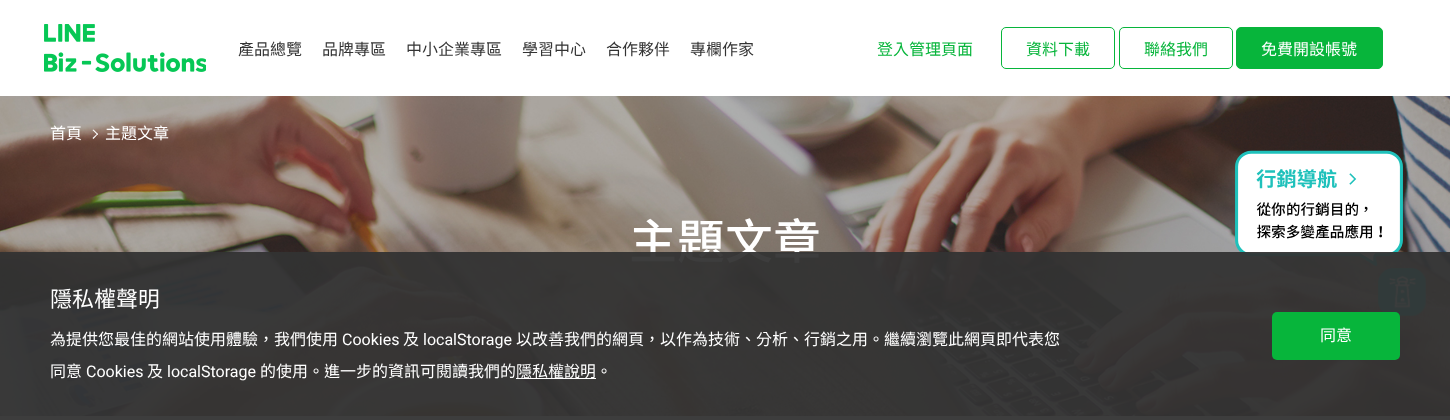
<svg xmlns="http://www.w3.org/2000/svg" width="1450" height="420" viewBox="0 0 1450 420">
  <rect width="100%" height="100%" fill="#ffffff"/>
  <image x="44" y="24" width="162" height="48" href="img1.png"/>
  <text x="238" y="55" font-family="Noto Sans TC" font-size="16" fill="#333333">產品總覽</text>
  <text x="322" y="55" font-family="Noto Sans TC" font-size="16" fill="#333333">品牌專區</text>
  <text x="406" y="55" font-family="Noto Sans TC" font-size="16" fill="#333333">中小企業專區</text>
  <text x="522" y="55" font-family="Noto Sans TC" font-size="16" fill="#333333">學習中心</text>
  <text x="606" y="55" font-family="Noto Sans TC" font-size="16" fill="#333333">合作夥伴</text>
  <text x="690" y="55" font-family="Noto Sans TC" font-size="16" fill="#333333">專欄作家</text>
  <text x="877" y="55" font-family="Noto Sans TC" font-size="16" fill="#07b53b">登入管理頁面</text>
  <rect x="1001.5" y="27.5" width="113" height="41" rx="4.5" fill="none" stroke="#07b53b"/>
  <text x="1026" y="55" font-family="Noto Sans TC" font-size="16" fill="#07b53b">資料下載</text>
  <rect x="1119.5" y="27.5" width="113" height="41" rx="4.5" fill="none" stroke="#07b53b"/>
  <text x="1144" y="55" font-family="Noto Sans TC" font-size="16" fill="#07b53b">聯絡我們</text>
  <rect x="1236.5" y="27.5" width="146" height="41" rx="4.5" fill="#07b53b" stroke="#07b53b"/>
  <text x="1261" y="55" font-family="Noto Sans TC" font-size="16" fill="#ffffff">免費開設帳號</text>
  <image x="0" y="96" width="1450" height="320" href="img2.png"/>
  <text x="50" y="139" font-family="Noto Sans TC" font-size="16" fill="#ffffff">首頁</text>
  <path d="M93.5 129.5L98 134L97.5 135L92.5 130Z" fill="#ffffff"/>
  <path d="M97.5 133.5L98 134L93.5 139L92.5 138Z" fill="#ffffff"/>
  <text x="105" y="139" font-family="Noto Sans TC" font-size="16" fill="#ffffff">主題文章</text>
  <text x="629" y="259" font-family="Noto Sans TC" font-size="48" font-weight="500" fill="#ffffff">主題文章</text>
  <image x="1235" y="150" width="168" height="116" href="img3.png"/>
  <image x="1378" y="268" width="48" height="48" href="img4.png"/>
  <rect x="0" y="252" width="1450" height="168" fill="#333333" fill-opacity="0.95"/>
  <text x="50" y="307" font-family="Noto Sans TC" font-size="22" fill="#ffffff">隱私權聲明</text>
  <text x="50" y="345" font-family="Noto Sans TC" font-size="16" fill="#ffffff">為提供您最佳的網站使用體驗，我們使用</text>
  <text x="342" y="345" font-family="Roboto" font-size="16" fill="#ffffff">Cookies</text>
  <text x="403" y="345" font-family="Noto Sans TC" font-size="16" fill="#ffffff">及</text>
  <text x="423" y="345" font-family="Roboto" font-size="16" fill="#ffffff">localStorage</text>
  <text x="516" y="345" font-family="Noto Sans TC" font-size="16" fill="#ffffff">以改善我們的網頁，以作為技術、分析、行銷之用。繼續瀏覽此網頁即代表您</text>
  <text x="50" y="377" font-family="Noto Sans TC" font-size="16" fill="#ffffff">同意</text>
  <text x="86" y="377" font-family="Roboto" font-size="16" fill="#ffffff">Cookies</text>
  <text x="147" y="377" font-family="Noto Sans TC" font-size="16" fill="#ffffff">及</text>
  <text x="167" y="377" font-family="Roboto" font-size="16" fill="#ffffff">localStorage</text>
  <text x="260" y="377" font-family="Noto Sans TC" font-size="16" fill="#ffffff">的使用。進一步的資訊可閱讀我們的</text>
  <rect x="516" y="378" width="80" height="1" fill="#ffffff"/>
  <text x="516" y="377" font-family="Noto Sans TC" font-size="16" fill="#ffffff">隱私權說明。</text>
  <rect x="1272" y="312" width="128" height="48" rx="5" fill="#07b53b"/>
  <text x="1320" y="341" font-family="Noto Sans TC" font-size="16" fill="#ffffff">同意</text>
</svg>
